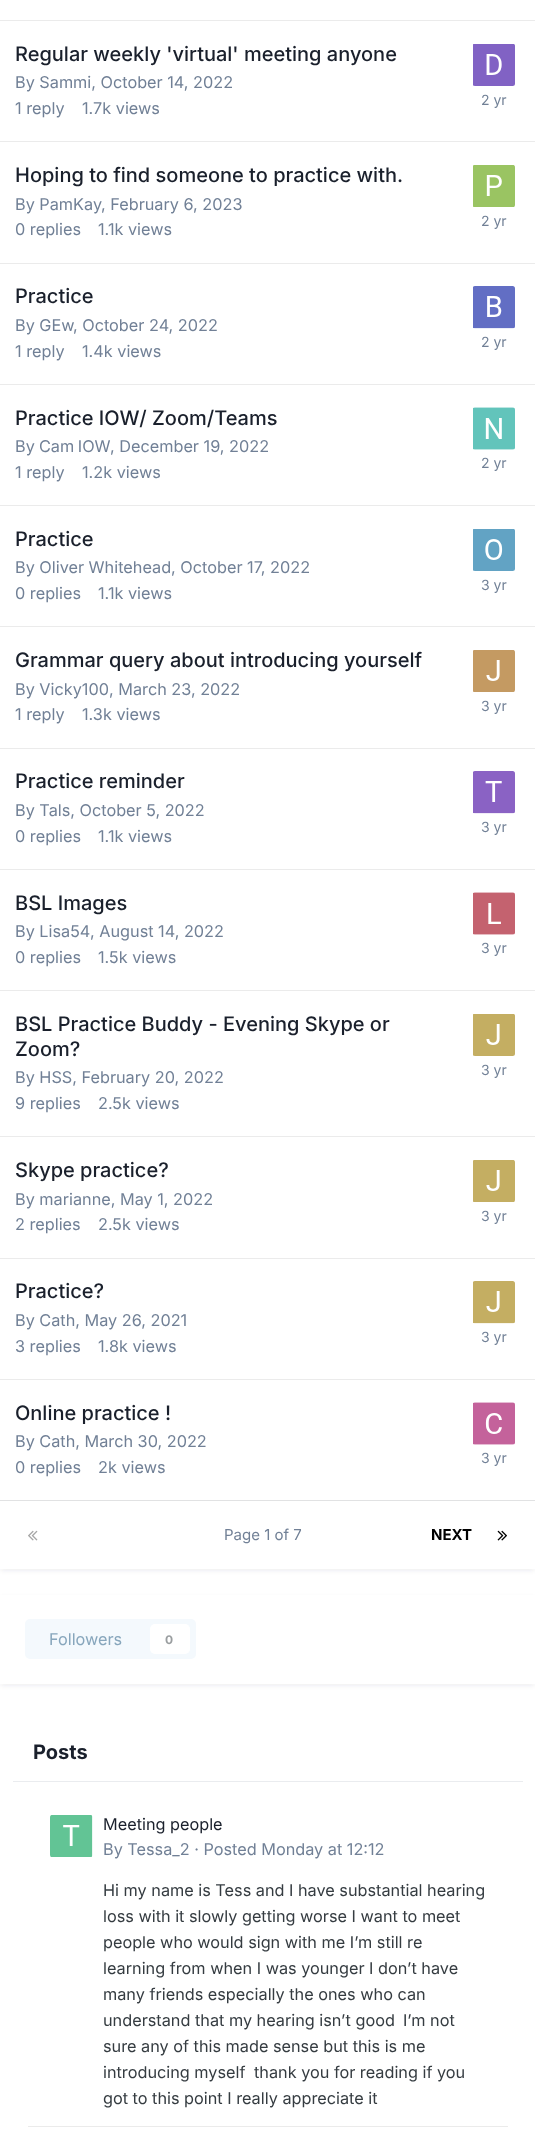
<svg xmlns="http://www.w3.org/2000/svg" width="535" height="2142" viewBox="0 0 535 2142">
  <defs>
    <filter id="blur1" x="-50%" y="-200%" width="200%" height="500%"><feGaussianBlur stdDeviation="2.5"/></filter>
  </defs>
  <rect width="100%" height="100%" fill="#ffffff"/>
  <rect x="1" y="-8" width="533" height="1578" fill="#2d3748" fill-opacity="0.1" filter="url(#blur1)"/>
  <rect x="0" y="0" width="535" height="1569" fill="#ffffff"/>
  <rect x="0" y="20" width="535" height="1" fill="#ebebeb"/>
  <rect x="0" y="141" width="535" height="1" fill="#ebebeb"/>
  <text x="15" y="61" font-family="Inter" font-size="20" font-weight="500" fill="#1a202c">Regular weekly 'virtual' meeting anyone</text>
  <text x="15" y="88" font-family="Inter" font-size="16.25" fill="#718096">By Sammi, October 14, 2022</text>
  <text x="15" y="114" font-family="Inter" font-size="16.25" fill="#718096">1 reply</text>
  <text x="82" y="114" font-family="Inter" font-size="16.25" fill="#718096">1.7k views</text>
  <image x="473" y="44" width="42" height="42" href="img1.png"/>
  <text x="481" y="105" font-family="Inter" font-size="14" fill="#718096">2 yr</text>
  <rect x="0" y="263" width="535" height="1" fill="#ebebeb"/>
  <text x="15" y="182" font-family="Inter" font-size="20" font-weight="500" fill="#1a202c">Hoping to find someone to practice with.</text>
  <text x="15" y="210" font-family="Inter" font-size="16.25" fill="#718096">By PamKay</text>
  <text x="101" y="210" font-family="Inter" font-size="16.25" fill="#718096">, February 6, 2023</text>
  <text x="15" y="235" font-family="Inter" font-size="16.25" fill="#718096">0 replies</text>
  <text x="98" y="235" font-family="Inter" font-size="16.25" fill="#718096">1.1k views</text>
  <image x="473" y="165" width="42" height="42" href="img2.png"/>
  <text x="481" y="226" font-family="Inter" font-size="14" fill="#718096">2 yr</text>
  <rect x="0" y="384" width="535" height="1" fill="#ebebeb"/>
  <text x="15" y="303" font-family="Inter" font-size="20" font-weight="500" fill="#1a202c">Practice</text>
  <text x="15" y="331" font-family="Inter" font-size="16.25" fill="#718096">By GEw</text>
  <text x="73" y="331" font-family="Inter" font-size="16.25" fill="#718096">, October 24, 2022</text>
  <text x="15" y="357" font-family="Inter" font-size="16.25" fill="#718096">1 reply</text>
  <text x="82" y="357" font-family="Inter" font-size="16.25" fill="#718096">1.4k views</text>
  <image x="473" y="286" width="42" height="43" href="img3.png"/>
  <text x="481" y="347" font-family="Inter" font-size="14" fill="#718096">2 yr</text>
  <rect x="0" y="505" width="535" height="1" fill="#ebebeb"/>
  <text x="15" y="425" font-family="Inter" font-size="20" font-weight="500" fill="#1a202c">Practice IOW/ Zoom/Teams</text>
  <text x="15" y="452" font-family="Inter" font-size="16.25" fill="#718096">By</text>
  <text x="39" y="452" word-spacing="-1" font-family="Inter" font-size="16.25" fill="#718096">Cam IOW</text>
  <text x="110" y="452" font-family="Inter" font-size="16.25" fill="#718096">, December 19, 2022</text>
  <text x="15" y="478" font-family="Inter" font-size="16.25" fill="#718096">1 reply</text>
  <text x="82" y="478" font-family="Inter" font-size="16.25" fill="#718096">1.2k views</text>
  <image x="473" y="407" width="42" height="43" href="img4.png"/>
  <text x="481" y="468" font-family="Inter" font-size="14" fill="#718096">2 yr</text>
  <rect x="0" y="626" width="535" height="1" fill="#ebebeb"/>
  <text x="15" y="546" font-family="Inter" font-size="20" font-weight="500" fill="#1a202c">Practice</text>
  <text x="15" y="573" font-family="Inter" font-size="16.25" fill="#718096">By Oliver Whitehead, October 17, 2022</text>
  <text x="15" y="599" font-family="Inter" font-size="16.25" fill="#718096">0 replies</text>
  <text x="98" y="599" font-family="Inter" font-size="16.25" fill="#718096">1.1k views</text>
  <image x="473" y="529" width="42" height="42" href="img5.png"/>
  <text x="481" y="590" font-family="Inter" font-size="14" fill="#718096">3 yr</text>
  <rect x="0" y="748" width="535" height="1" fill="#ebebeb"/>
  <text x="15" y="667" font-family="Inter" font-size="20" font-weight="500" fill="#1a202c">Grammar query about introducing yourself</text>
  <text x="15" y="695" font-family="Inter" font-size="16.25" fill="#718096">By Vicky100</text>
  <text x="109" y="695" font-family="Inter" font-size="16.25" fill="#718096">, March 23, 2022</text>
  <text x="15" y="720" font-family="Inter" font-size="16.25" fill="#718096">1 reply</text>
  <text x="82" y="720" font-family="Inter" font-size="16.25" fill="#718096">1.3k views</text>
  <image x="473" y="650" width="42" height="42" href="img6.png"/>
  <text x="481" y="711" font-family="Inter" font-size="14" fill="#718096">3 yr</text>
  <rect x="0" y="869" width="535" height="1" fill="#ebebeb"/>
  <text x="15" y="788" font-family="Inter" font-size="20" font-weight="500" fill="#1a202c">Practice reminder</text>
  <text x="15" y="816" font-family="Inter" font-size="16.25" fill="#718096">By Tals, October 5, 2022</text>
  <text x="15" y="842" font-family="Inter" font-size="16.25" fill="#718096">0 replies</text>
  <text x="98" y="842" font-family="Inter" font-size="16.25" fill="#718096">1.1k views</text>
  <image x="473" y="771" width="42" height="43" href="img7.png"/>
  <text x="481" y="832" font-family="Inter" font-size="14" fill="#718096">3 yr</text>
  <rect x="0" y="990" width="535" height="1" fill="#ebebeb"/>
  <text x="15" y="910" font-family="Inter" font-size="20" font-weight="500" fill="#1a202c">BSL Images</text>
  <text x="15" y="937" font-family="Inter" font-size="16.25" fill="#718096">By Lisa54</text>
  <text x="90" y="937" font-family="Inter" font-size="16.25" fill="#718096">, August 14, 2022</text>
  <text x="15" y="963" font-family="Inter" font-size="16.25" fill="#718096">0 replies</text>
  <text x="98" y="963" font-family="Inter" font-size="16.25" fill="#718096">1.5k views</text>
  <image x="473" y="892" width="42" height="43" href="img8.png"/>
  <text x="481" y="953" font-family="Inter" font-size="14" fill="#718096">3 yr</text>
  <rect x="0" y="1136" width="535" height="1" fill="#ebebeb"/>
  <text x="15" y="1031" font-family="Inter" font-size="20" font-weight="500" fill="#1a202c">BSL Practice Buddy - Evening Skype or</text>
  <text x="15" y="1056" font-family="Inter" font-size="20" font-weight="500" fill="#1a202c">Zoom?</text>
  <text x="15" y="1083" font-family="Inter" font-size="16.25" fill="#718096">By HSS, February 20, 2022</text>
  <image x="473" y="1014" width="42" height="42" href="img9.png"/>
  <text x="481" y="1075" font-family="Inter" font-size="14" fill="#718096">3 yr</text>
  <text x="15" y="1109" font-family="Inter" font-size="16.25" fill="#718096">9 replies</text>
  <text x="98" y="1109" font-family="Inter" font-size="16.25" fill="#718096">2.5k views</text>
  <rect x="0" y="1258" width="535" height="1" fill="#ebebeb"/>
  <text x="15" y="1177" font-family="Inter" font-size="20" font-weight="500" fill="#1a202c">Skype practice?</text>
  <text x="15" y="1205" font-family="Inter" font-size="16.25" fill="#718096">By marianne, May 1, 2022</text>
  <text x="15" y="1230" font-family="Inter" font-size="16.25" fill="#718096">2 replies</text>
  <text x="98" y="1230" font-family="Inter" font-size="16.25" fill="#718096">2.5k views</text>
  <image x="473" y="1160" width="42" height="42" href="img10.png"/>
  <text x="481" y="1221" font-family="Inter" font-size="14" fill="#718096">3 yr</text>
  <rect x="0" y="1379" width="535" height="1" fill="#ebebeb"/>
  <text x="15" y="1298" font-family="Inter" font-size="20" font-weight="500" fill="#1a202c">Practice?</text>
  <text x="15" y="1326" font-family="Inter" font-size="16.25" fill="#718096">By Cath, May 26, 2021</text>
  <text x="15" y="1352" font-family="Inter" font-size="16.25" fill="#718096">3 replies</text>
  <text x="98" y="1352" font-family="Inter" font-size="16.25" fill="#718096">1.8k views</text>
  <image x="473" y="1281" width="42" height="43" href="img11.png"/>
  <text x="481" y="1342" font-family="Inter" font-size="14" fill="#718096">3 yr</text>
  <text x="15" y="1420" font-family="Inter" font-size="20" font-weight="500" fill="#1a202c">Online practice !</text>
  <text x="15" y="1447" font-family="Inter" font-size="16.25" fill="#718096">By Cath, March 30, 2022</text>
  <text x="15" y="1473" font-family="Inter" font-size="16.25" fill="#718096">0 replies</text>
  <text x="98" y="1473" font-family="Inter" font-size="16.25" fill="#718096">2k views</text>
  <image x="473" y="1402" width="42" height="43" href="img12.png"/>
  <text x="481" y="1463" font-family="Inter" font-size="14" fill="#718096">3 yr</text>
  <rect x="0" y="1500" width="535" height="1" fill="#e1e2e3"/>
  <image x="28" y="1530" width="10" height="11" href="img13.png"/>
  <text x="224" y="1540" font-family="Inter" font-size="15" fill="#718096">Page 1 of 7</text>
  <text x="431" y="1540" font-family="Inter" font-size="15" font-weight="bold" fill="#000000">NEXT</text>
  <image x="497" y="1530" width="10" height="11" href="img14.png"/>
  <rect x="1" y="1598" width="533" height="87" fill="#2d3748" fill-opacity="0.1" filter="url(#blur1)"/>
  <rect x="0" y="1595" width="535" height="89" fill="#ffffff"/>
  <rect x="25" y="1619" width="171" height="40" rx="5" fill="#f4f9fd"/>
  <text x="49" y="1645" font-family="Inter" font-size="16.25" fill="#87a6bc">Followers</text>
  <rect x="150" y="1624" width="40" height="30" rx="5" fill="#ffffff"/>
  <text x="165" y="1644" font-family="Inter" font-size="12" font-weight="bold" fill="#9a9ea0">0</text>
  <rect x="13" y="1781" width="510" height="1" fill="#eaecef"/>
  <text x="33" y="1759" font-family="Inter" font-size="20" font-weight="bold" fill="#1a202c">Posts</text>
  <rect x="28" y="2126" width="480" height="1" fill="#ebebeb"/>
  <image x="50" y="1815" width="43" height="42" href="img15.png"/>
  <text x="103" y="1830" font-family="Inter" font-size="16.25" fill="#1a202c">Meeting people</text>
  <text x="103" y="1855" font-family="Inter" font-size="16.25" fill="#718096">By Tessa_2 · Posted Monday at 12:12</text>
  <text x="103" y="1896" font-family="Inter" font-size="16.25" fill="#353c41">Hi my name is Tess and I have substantial hearing</text>
  <text x="103" y="1922" font-family="Inter" font-size="16.25" fill="#353c41">loss with it slowly getting worse I want to meet</text>
  <text x="103" y="1948" font-family="Inter" font-size="16.25" fill="#353c41">people who would sign with me I’m still re</text>
  <text x="103" y="1974" font-family="Inter" font-size="16.25" fill="#353c41">learning from when I was younger I don’t have</text>
  <text x="103" y="2000" font-family="Inter" font-size="16.25" fill="#353c41">many friends especially the ones who can</text>
  <text x="103" y="2026" font-family="Inter" font-size="16.25" fill="#353c41">understand that my hearing isn’t good</text>
  <text x="403" y="2026" font-family="Inter" font-size="16.25" fill="#353c41">I’m not</text>
  <text x="103" y="2052" font-family="Inter" font-size="16.25" fill="#353c41">sure any of this made sense but this is me</text>
  <text x="103" y="2078" font-family="Inter" font-size="16.25" fill="#353c41">introducing myself</text>
  <text x="254" y="2078" font-family="Inter" font-size="16.25" fill="#353c41">thank you for reading if you</text>
  <text x="103" y="2104" font-family="Inter" font-size="16.25" fill="#353c41">got to this point I really appreciate it</text>
</svg>
